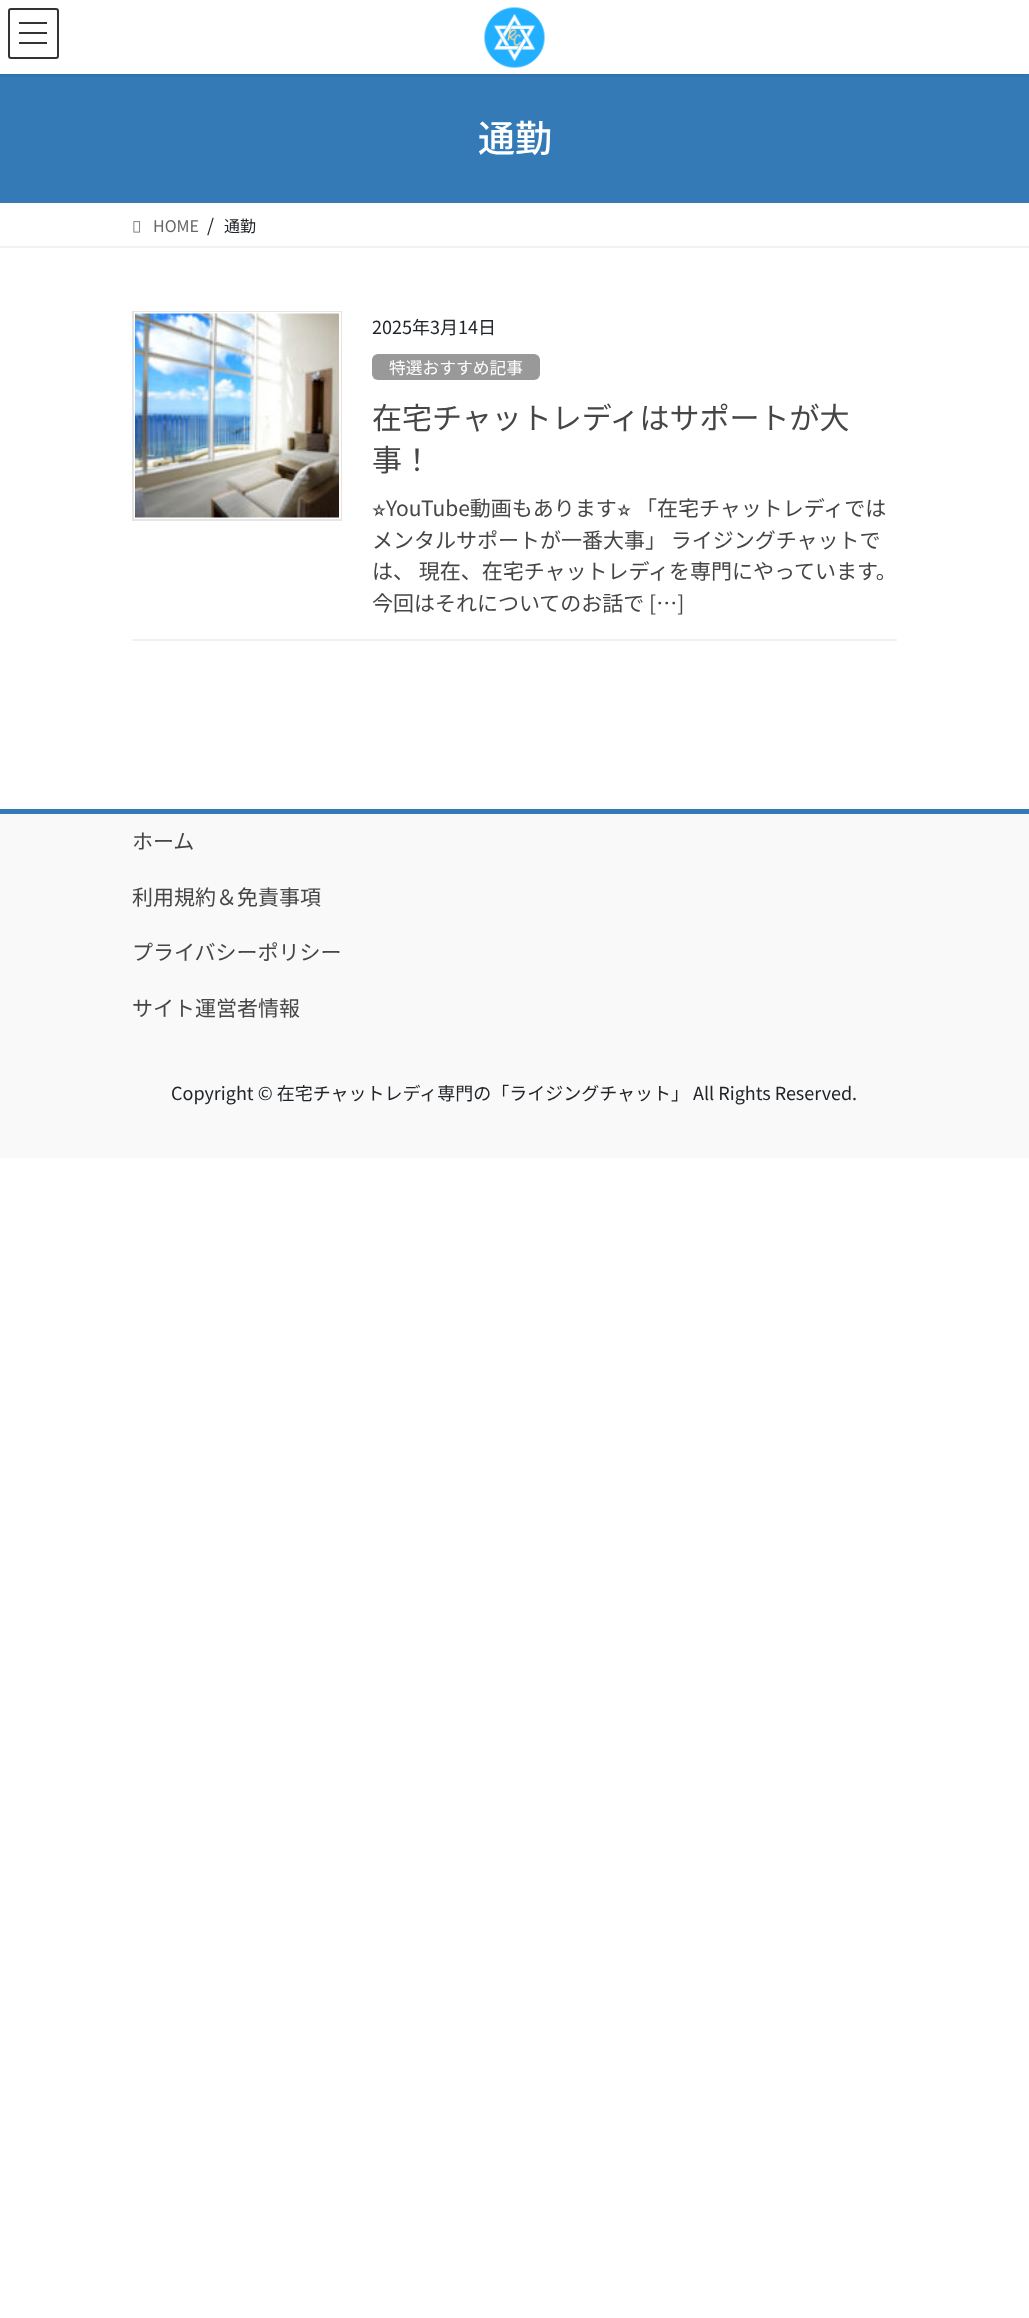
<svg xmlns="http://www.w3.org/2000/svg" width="1029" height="2318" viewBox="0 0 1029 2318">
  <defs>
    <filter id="blur1" x="-50%" y="-200%" width="200%" height="500%"><feGaussianBlur stdDeviation="2"/></filter>
  </defs>
  <rect width="100%" height="100%" fill="#ffffff"/>
  <rect x="0" y="74" width="1029" height="129" fill="#337ab7"/>
  <rect x="0" y="2" width="1029" height="73" fill="#000000" fill-opacity="0.1" filter="url(#blur1)"/>
  <rect x="0" y="0" width="1029" height="74" fill="#ffffff"/>
  <image x="484" y="7" width="61" height="61" href="img1.png"/>
  <rect x="19" y="22" width="28" height="2" fill="#333333"/>
  <rect x="19" y="32" width="28" height="2" fill="#333333"/>
  <rect x="19" y="42" width="28" height="2" fill="#333333"/>
  <rect x="9" y="9" width="49" height="49" rx="2" fill="none" stroke="#333333" stroke-width="2"/>
  <text x="478" y="152" font-family="Noto Sans JP" font-size="37" font-weight="500" fill="#ffffff">通勤</text>
  <rect x="0" y="246" width="1029" height="2" fill="#f2f2f2"/>
  <image x="133" y="221" width="7" height="12" href="img2.png"/>
  <text x="153" y="232" font-family="Noto Sans JP" font-size="16" fill="#666666">HOME</text>
  <text x="207" y="232" font-family="Noto Sans JP" font-size="18" fill="#212529">/</text>
  <text x="224" y="232" font-family="Noto Sans JP" font-size="16" fill="#212529">通勤</text>
  <rect x="132" y="639" width="765" height="2" fill="#f2f2f2"/>
  <rect x="133" y="312" width="208" height="208" fill="none" stroke="#e5e5e5" stroke-width="2"/>
  <rect x="135" y="313" width="205" height="205" fill="none" stroke="#ffffff" stroke-width="2"/>
  <image x="135" y="313" width="204" height="205" href="img3.png"/>
  <text x="372" y="334" font-family="Noto Sans JP" font-size="18" fill="#212529">2025年3月14日</text>
  <rect x="372" y="354" width="168" height="26" rx="6" fill="#999999"/>
  <text x="389" y="374" font-family="Noto Sans JP" font-size="16.75" fill="#ffffff">特選おすすめ記事</text>
  <text x="372" y="429" font-family="Noto Sans JP" font-size="30" fill="#464646">在宅チャットレディはサポートが大</text>
  <text x="372" y="471" font-family="Noto Sans JP" font-size="30" fill="#464646">事！</text>
  <text x="372" y="516" font-family="FreeSans" font-size="21" fill="#464646">⭐︎</text>
  <text x="386" y="516" font-family="Noto Sans JP" font-size="21" fill="#464646">YouTube動画もあります</text>
  <text x="617" y="516" font-family="FreeSans" font-size="21" fill="#464646">⭐︎</text>
  <text x="636" y="516" font-family="Noto Sans JP" font-size="21" fill="#464646">「在宅チャットレディでは</text>
  <text x="372" y="548" font-family="Noto Sans JP" font-size="21" fill="#464646">メンタルサポートが一番大事」 ライジングチャットで</text>
  <text x="372" y="579" font-family="Noto Sans JP" font-size="21" fill="#464646">は、 現在、在宅チャットレディを専門にやっています。</text>
  <text x="372" y="611" font-family="Noto Sans JP" font-size="21" fill="#464646">今回はそれについてのお話で […]</text>
  <rect x="0" y="814" width="1029" height="344" fill="#f9f9f9"/>
  <rect x="0" y="809" width="1029" height="5" fill="#337ab7"/>
  <text x="132" y="849" font-family="Noto Sans JP" font-size="21" fill="#464646">ホーム</text>
  <text x="132" y="905" font-family="Noto Sans JP" font-size="21" fill="#464646">利用規約＆免責事項</text>
  <text x="132" y="960" font-family="Noto Sans JP" font-size="21" fill="#464646">プライバシーポリシー</text>
  <text x="132" y="1016" font-family="Noto Sans JP" font-size="21" fill="#464646">サイト運営者情報</text>
  <text x="171" y="1100" font-family="Noto Sans JP" font-size="18" fill="#212529">Copyright © 在宅チャットレディ専門の「ライジングチャット」 All Rights Reserved.</text>
</svg>
